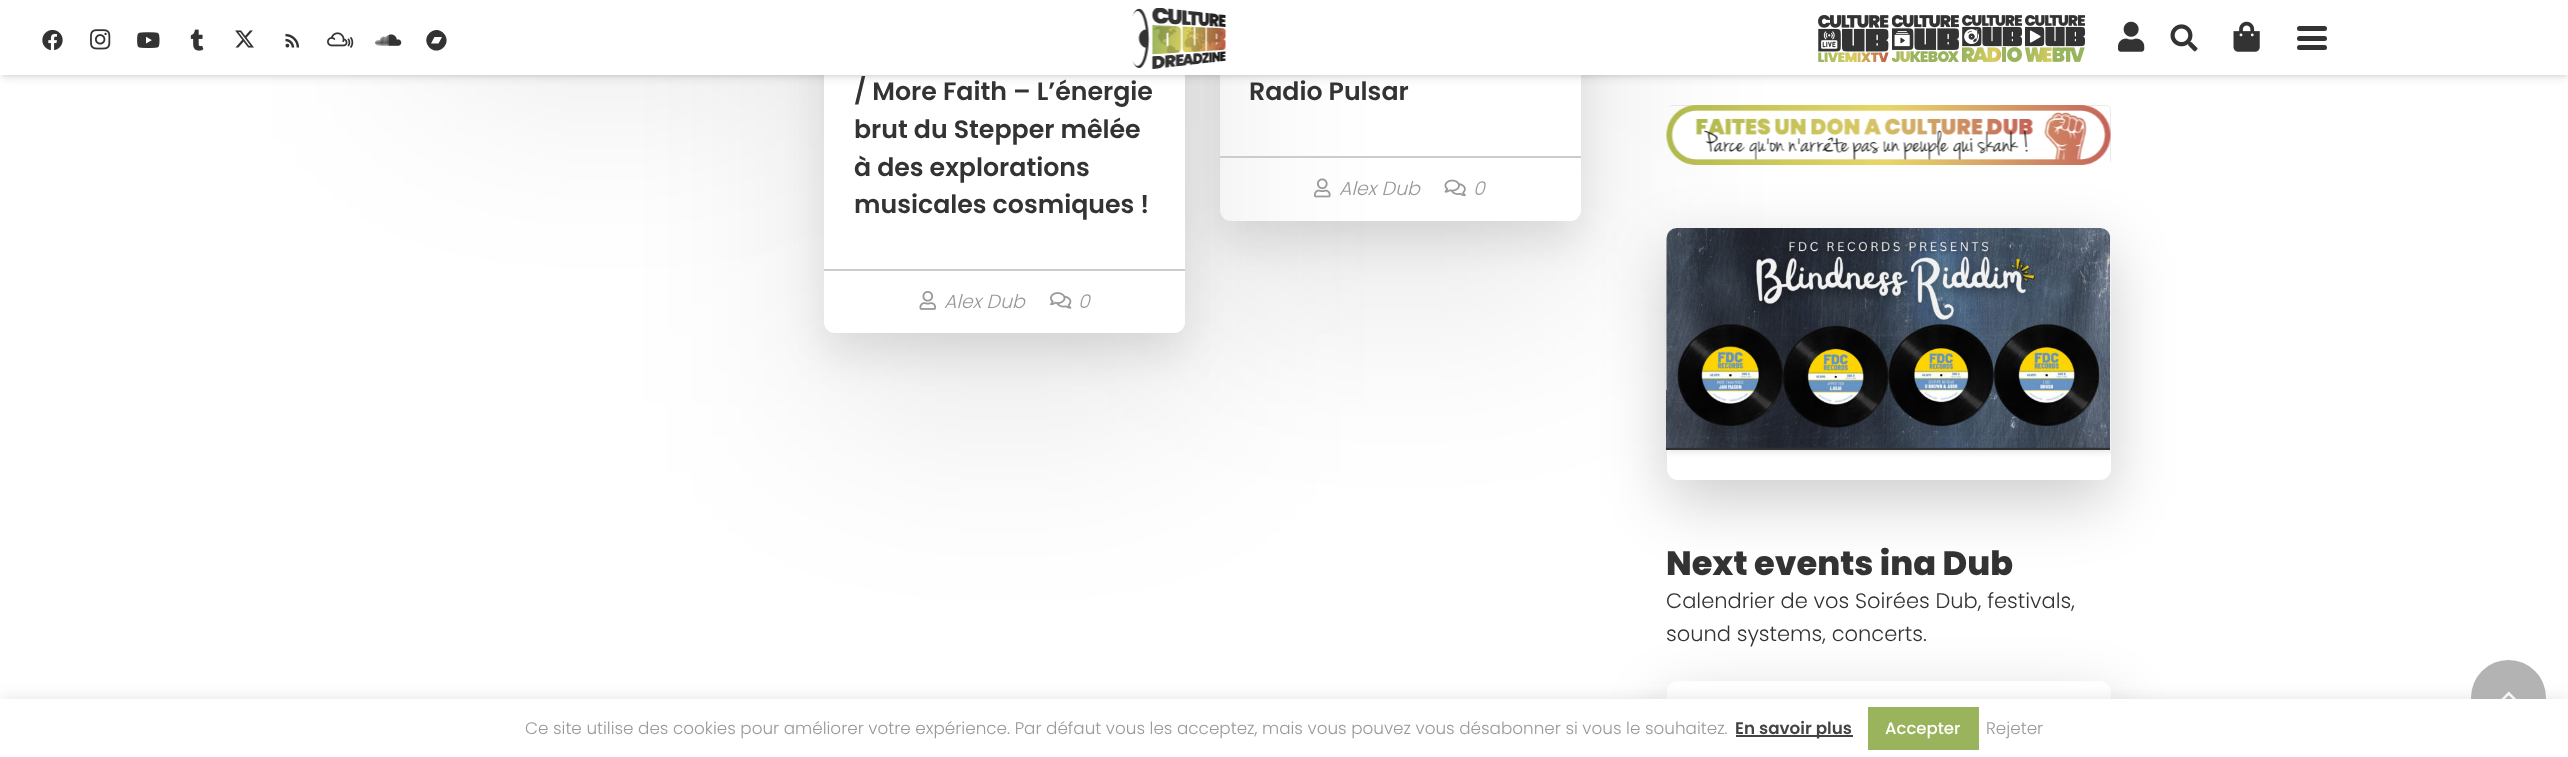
<svg xmlns="http://www.w3.org/2000/svg" width="2568" height="757" viewBox="0 0 2568 757">
  <defs>
    <filter id="blur1" x="-50%" y="-200%" width="200%" height="500%"><feGaussianBlur stdDeviation="105"/></filter>
    <filter id="blur2" x="-50%" y="-200%" width="200%" height="500%"><feGaussianBlur stdDeviation="21"/></filter>
    <filter id="blur3" x="-50%" y="-200%" width="200%" height="500%"><feGaussianBlur stdDeviation="1"/></filter>
    <filter id="blur4" x="-50%" y="-200%" width="200%" height="500%"><feGaussianBlur stdDeviation="4"/></filter>
    <clipPath id="clip1"><path d="M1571 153H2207V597H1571ZM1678 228H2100C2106 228 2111 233 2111 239V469C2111 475 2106 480 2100 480H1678C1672 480 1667 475 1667 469V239C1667 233 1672 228 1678 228Z" clip-rule="evenodd"/></clipPath>
    <filter id="blur5" x="-50%" y="-200%" width="200%" height="500%"><feGaussianBlur stdDeviation="31.5"/></filter>
    <clipPath id="clip2"><rect x="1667" y="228" width="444" height="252" rx="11"/></clipPath>
    <clipPath id="clip3"><path d="M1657 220H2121V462H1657ZM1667 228H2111V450H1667Z" clip-rule="evenodd"/></clipPath>
    <filter id="blur6" x="-50%" y="-200%" width="200%" height="500%"><feGaussianBlur stdDeviation="3"/></filter>
    <clipPath id="clip4"><path d="M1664 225H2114V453H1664ZM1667 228H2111V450H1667Z" clip-rule="evenodd"/></clipPath>
    <filter id="blur7" x="-50%" y="-200%" width="200%" height="500%"><feGaussianBlur stdDeviation="0.5"/></filter>
    <filter id="blur8" x="-50%" y="-200%" width="200%" height="500%"><feGaussianBlur stdDeviation="7.5"/></filter>
  </defs>
  <rect width="100%" height="100%" fill="#ffffff"/>
  <rect x="429" y="-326" width="362" height="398" rx="11" fill="#000000" fill-opacity="0.1" filter="url(#blur1)"/>
  <rect x="1220" y="-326" width="361" height="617" rx="11" fill="#000000" fill-opacity="0.1" filter="url(#blur1)"/>
  <rect x="1220" y="-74" width="361" height="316" rx="11" fill="#000000" fill-opacity="0.1" filter="url(#blur2)"/>
  <rect x="1220" y="-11" width="361" height="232" rx="11" fill="#ffffff"/>
  <rect x="824" y="-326" width="361" height="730" rx="11" fill="#000000" fill-opacity="0.1" filter="url(#blur1)"/>
  <rect x="824" y="-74" width="361" height="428" rx="11" fill="#000000" fill-opacity="0.1" filter="url(#blur2)"/>
  <rect x="824" y="-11" width="361" height="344" rx="11" fill="#ffffff"/>
  <rect x="2" y="5" width="2565" height="72" fill="#000000" fill-opacity="0.05" filter="url(#blur3)"/>
  <rect x="2" y="6" width="2565" height="72" fill="#000000" fill-opacity="0.1" filter="url(#blur4)"/>
  <rect x="0" y="0" width="2568" height="75" fill="#ffffff"/>
  <image x="42" y="30" width="21" height="21" href="img1.png"/>
  <image x="90" y="29" width="21" height="21" href="img2.png"/>
  <image x="137" y="32" width="23" height="16" href="img3.png"/>
  <image x="190" y="29" width="14" height="22" href="img4.png"/>
  <image x="235" y="30" width="19" height="18" href="img5.png"/>
  <image x="285" y="33" width="15" height="15" href="img6.png"/>
  <image x="327" y="32" width="27" height="16" href="img7.png"/>
  <image x="375" y="34" width="27" height="12" href="img8.png"/>
  <path d="M429.5 33C439 23.5 453 38 443.5 47.5C434 57 420 42.5 429.5 33ZM438.5 43.5L442 37H434.5L431 43.5Z" fill="#333333"/>
  <image x="1132" y="8" width="94" height="61" href="img9.png"/>
  <image x="1818" y="15" width="71" height="47" href="img10.png"/>
  <image x="1892" y="15" width="67" height="47" href="img11.png"/>
  <image x="1962" y="15" width="60" height="47" href="img12.png"/>
  <image x="2025" y="15" width="60" height="47" href="img13.png"/>
  <image x="2118" y="21" width="27" height="31" href="img14.png"/>
  <image x="2170" y="24" width="28" height="28" href="img15.png"/>
  <image x="2233" y="21" width="27" height="31" href="img16.png"/>
  <rect x="2297" y="36" width="30" height="5" rx="2.5" fill="#333333"/>
  <rect x="2297" y="26" width="30" height="5" rx="2.5" fill="#333333"/>
  <rect x="2297" y="45" width="30" height="5" rx="2.5" fill="#333333"/>
  <text x="854" y="100" font-family="Poppins" font-size="25.25" font-weight="600" fill="#333333">/ More Faith – L’énergie</text>
  <text x="854" y="138" font-family="Poppins" font-size="25.25" font-weight="600" fill="#333333">brut du Stepper mêlée</text>
  <text x="854" y="176" font-family="Poppins" font-size="25.25" font-weight="600" fill="#333333">à des explorations</text>
  <text x="854" y="213" font-family="Poppins" font-size="25.25" font-weight="600" fill="#333333">musicales cosmiques !</text>
  <rect x="824" y="269" width="361" height="2" fill="#cccccc"/>
  <image x="919" y="291" width="17" height="19" href="img17.png"/>
  <text x="944" y="308" font-family="Poppins" font-size="19" font-weight="300" font-style="italic" fill="#999999">Alex Dub</text>
  <image x="1050" y="292" width="22" height="17" href="img18.png"/>
  <text x="1078" y="308" font-family="Poppins" font-size="19" font-weight="300" font-style="italic" fill="#999999">0</text>
  <text x="1249" y="100" font-family="Poppins" font-size="25.25" font-weight="600" fill="#333333">Radio Pulsar</text>
  <g clip-path="url(#clip1)">
    <rect x="1667" y="249" width="444" height="252" rx="11" fill="#000000" fill-opacity="0.2" filter="url(#blur5)"/>
  </g>
  <rect x="1220" y="156" width="361" height="2" fill="#cccccc"/>
  <image x="1314" y="178" width="17" height="20" href="img19.png"/>
  <text x="1339" y="195" font-family="Poppins" font-size="19" font-weight="300" font-style="italic" fill="#999999">Alex Dub</text>
  <image x="1444" y="179" width="22" height="18" href="img20.png"/>
  <text x="1473" y="195" font-family="Poppins" font-size="19" font-weight="300" font-style="italic" fill="#999999">0</text>
  <path d="M1671 106H2106C2109 106 2110 108 2110 111V163C2111 162 2111 161 2111 160V110C2111 107 2109 105 2106 105H1672C1671 105 1669 106 1668 107Z" fill="#000000" fill-opacity="0.08"/>
  <image x="1666" y="105" width="445" height="60" href="img21.png"/>
  <image x="1666" y="228" width="444" height="222" href="img22.png"/>
  <g clip-path="url(#clip2)">
    <g clip-path="url(#clip3)">
      <rect x="1667" y="230" width="444" height="222" fill="#000000" fill-opacity="0.1" filter="url(#blur6)"/>
    </g>
  </g>
  <g clip-path="url(#clip4)">
    <rect x="1667" y="228" width="444" height="222" fill="#000000" fill-opacity="0.1" filter="url(#blur7)"/>
  </g>
  <g clip-path="url(#clip2)">
    <rect x="2111" y="230" width="445" height="222" fill="#000000" fill-opacity="0.1" filter="url(#blur6)"/>
  </g>
  <text x="1666" y="575" font-family="Poppins" font-size="33.6" font-weight="800" fill="#333333">Next events ina Dub</text>
  <rect x="1667" y="702" width="444" height="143" rx="11" fill="#000000" fill-opacity="0.2" filter="url(#blur5)"/>
  <text x="1666" y="608" font-family="Poppins" font-size="21" font-weight="300" fill="#333333">Calendrier de vos Soirées Dub, festivals,</text>
  <text x="1666" y="641" font-family="Poppins" font-size="21" font-weight="300" fill="#333333">sound systems, concerts.</text>
  <rect x="1667" y="681" width="444" height="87" rx="11" fill="#ffffff"/>
  <circle cx="2508.5" cy="697.5" r="37.5" fill="#b3b3b3"/>
  <image x="2501" y="691" width="16" height="8" href="img23.png"/>
  <rect x="0" y="698" width="2568" height="58" fill="#acabab" fill-opacity="0.3" filter="url(#blur8)"/>
  <rect x="0" y="699" width="2568" height="58" fill="#ffffff"/>
  <text x="525" y="734" font-family="Poppins" font-size="16.8" font-weight="300" fill="#999999">Ce site utilise des cookies pour améliorer votre expérience. Par défaut vous les acceptez, mais vous pouvez vous désabonner si vous le souhaitez.</text>
  <rect x="1736" y="735" width="117" height="2" fill="#444444"/>
  <text x="1735" y="734" font-family="Poppins" font-size="16.8" font-weight="600" fill="#444444">En savoir plus</text>
  <rect x="1868" y="707" width="111" height="43" fill="#9ab45d"/>
  <text x="1885" y="734" font-family="Poppins" font-size="16.5" font-weight="500" fill="#ffffff">Accepter</text>
  <text x="1986" y="734" font-family="Poppins" font-size="16.8" font-weight="300" fill="#999999">Rejeter</text>
</svg>
